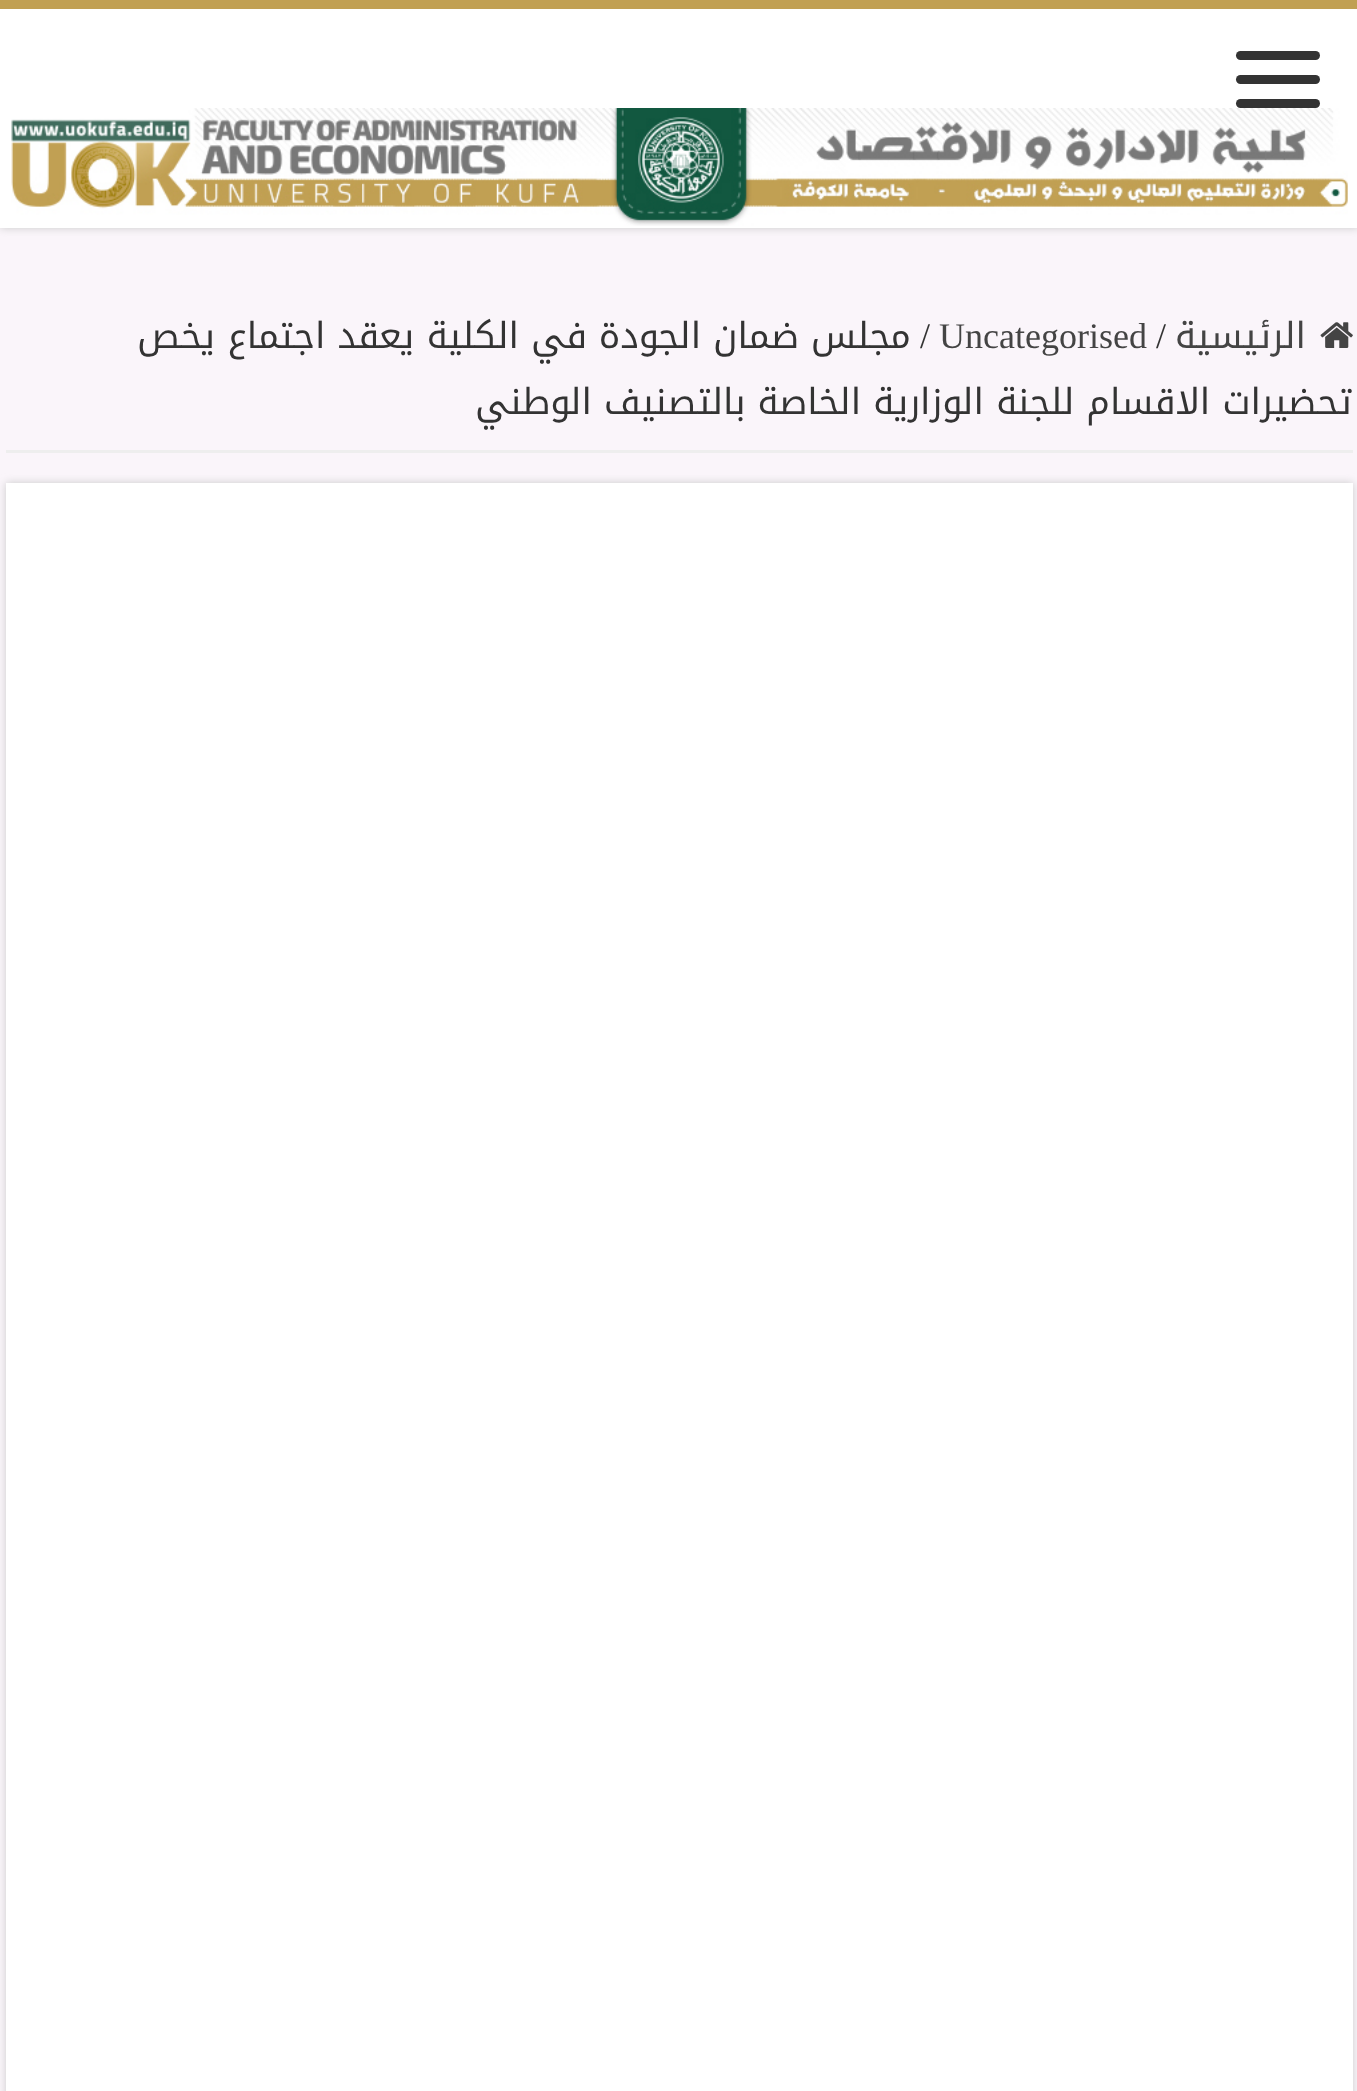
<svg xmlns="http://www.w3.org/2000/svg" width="1357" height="2091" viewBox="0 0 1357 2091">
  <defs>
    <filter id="blur1" x="-50%" y="-200%" width="200%" height="500%"><feGaussianBlur stdDeviation="4.5"/></filter>
  </defs>
  <rect width="100%" height="100%" fill="#faf5fa"/>
  <rect x="0" y="0" width="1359" height="228" fill="#cacaca" filter="url(#blur1)"/>
  <rect x="0" y="9" width="1357" height="219" fill="#ffffff"/>
  <rect x="0" y="0" width="1357" height="9" fill="#c1a053"/>
  <rect x="1236" y="51" width="84" height="9" rx="4.5" fill="#333333"/>
  <rect x="1236" y="75" width="84" height="9" rx="4.5" fill="#333333"/>
  <rect x="1236" y="99" width="84" height="9" rx="4.5" fill="#333333"/>
  <image x="11" y="108" width="1337" height="118" href="img1.png"/>
  <rect x="6" y="450" width="1347" height="3" fill="#eeeeee"/>
  <image x="1320" y="322" width="33" height="26" href="img2.png"/>
  <text x="1306" y="348" font-family="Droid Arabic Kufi" font-size="36" direction="rtl" fill="#444444">الرئيسية</text>
  <text x="1156" y="348" font-family="Liberation Serif" font-size="36" fill="#333333">/</text>
  <text x="939" y="348" font-family="Liberation Serif" font-size="36" fill="#444444">Uncategorised</text>
  <text x="920" y="348" font-family="Liberation Serif" font-size="36" fill="#333333">/</text>
  <text x="911" y="348" font-family="Droid Arabic Kufi" font-size="36" direction="rtl" fill="#333333">مجلس ضمان الجودة</text>
  <text x="587" y="348" font-family="Droid Arabic Kufi" font-size="36" direction="rtl" fill="#333333">في الكلية يعقد اجتماع يخص</text>
  <text x="1352" y="414" font-family="Droid Arabic Kufi" font-size="36" direction="rtl" fill="#333333">تحضيرات الاقسام للجنة الوزارية الخاصة بالتصنيف الوطني</text>
  <rect x="6" y="483" width="1347" height="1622" fill="#cacaca" filter="url(#blur1)"/>
  <rect x="6" y="483" width="1347" height="1608" fill="#ffffff"/>
</svg>
